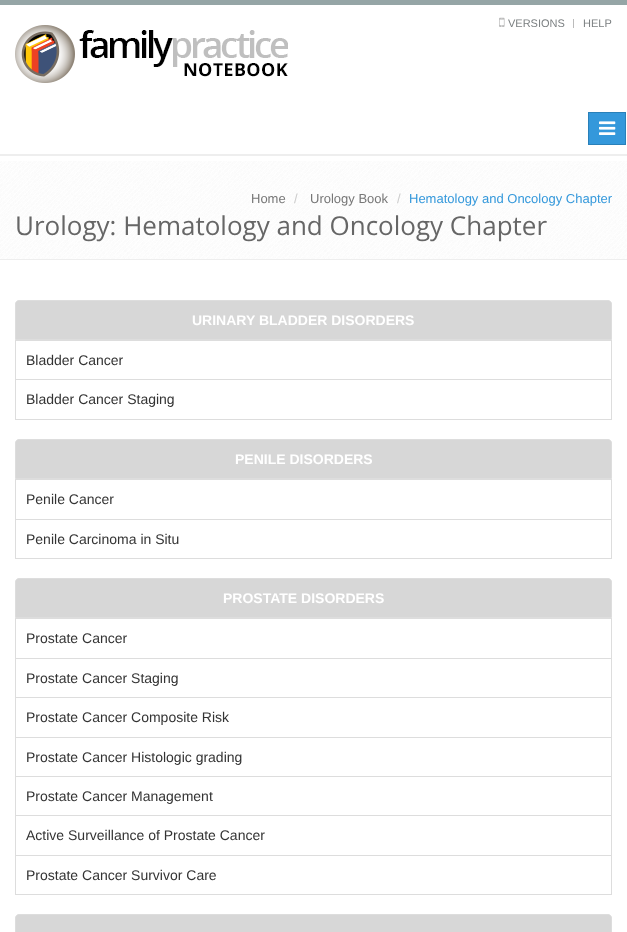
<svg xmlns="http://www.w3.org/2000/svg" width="627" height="932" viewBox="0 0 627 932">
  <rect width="100%" height="100%" fill="#ffffff"/>
  <rect x="0" y="0" width="627" height="5" fill="#95a5a6"/>
  <rect x="0" y="154" width="627" height="2" fill="#eeeeee"/>
  <image x="499" y="17" width="6" height="10" href="img1.png"/>
  <text x="508" y="27" font-family="Liberation Sans" font-size="11" fill="#7c8082">VERSIONS</text>
  <rect x="573" y="19" width="1" height="9" fill="#bbbbbb"/>
  <text x="583" y="27" font-family="Liberation Sans" font-size="11" fill="#7c8082">HELP</text>
  <image x="15" y="25" width="273" height="58" href="img2.png"/>
  <rect x="588.5" y="112.5" width="37" height="32" fill="#3498db" stroke="#2980b9"/>
  <image x="599" y="121" width="17" height="14" href="img3.png"/>
  <image x="0" y="161" width="627" height="98" href="img4.png"/>
  <rect x="0" y="259" width="627" height="1" fill="#eeeeee"/>
  <text x="251" y="203" font-family="Liberation Sans" font-size="13" fill="#777777">Home</text>
  <text x="294" y="203" font-family="Liberation Sans" font-size="13" fill="#cccccc">/</text>
  <text x="310" y="203" font-family="Liberation Sans" font-size="13" fill="#777777">Urology Book</text>
  <text x="397" y="203" font-family="Liberation Sans" font-size="13" fill="#cccccc">/</text>
  <text x="409" y="203" font-family="Liberation Sans" font-size="13" fill="#3498db">Hematology and Oncology Chapter</text>
  <text x="15" y="235" font-family="Open Sans" font-size="26" fill="#666666">Urology: Hematology and Oncology Chapter</text>
  <path d="M19 300.5H608C610 300.5 611.5 302 611.5 304V339.5H15.5V304C15.5 302 17 300.5 19 300.5Z" fill="#d7d7d7" stroke="#dddddd"/>
  <text x="192" y="325" font-family="Liberation Sans" font-size="14" font-weight="bold" fill="#ffffff">URINARY BLADDER DISORDERS</text>
  <rect x="15.5" y="340.5" width="596" height="39" fill="none" stroke="#dddddd"/>
  <text x="26" y="365" font-family="Liberation Sans" font-size="14" fill="#333333">Bladder Cancer</text>
  <rect x="15.5" y="379.5" width="596" height="40" fill="none" stroke="#dddddd"/>
  <text x="26" y="404" font-family="Liberation Sans" font-size="14" fill="#333333">Bladder Cancer Staging</text>
  <path d="M19 439.5H608C610 439.5 611.5 441 611.5 443V478.5H15.5V443C15.5 441 17 439.5 19 439.5Z" fill="#d7d7d7" stroke="#dddddd"/>
  <text x="235" y="464" font-family="Liberation Sans" font-size="14" font-weight="bold" fill="#ffffff">PENILE DISORDERS</text>
  <rect x="15.5" y="479.5" width="596" height="40" fill="none" stroke="#dddddd"/>
  <text x="26" y="504" font-family="Liberation Sans" font-size="14" fill="#333333">Penile Cancer</text>
  <rect x="15.5" y="519.5" width="596" height="39" fill="none" stroke="#dddddd"/>
  <text x="26" y="544" font-family="Liberation Sans" font-size="14" fill="#333333">Penile Carcinoma in Situ</text>
  <path d="M19 578.5H608C610 578.5 611.5 580 611.5 582V617.5H15.5V582C15.5 580 17 578.5 19 578.5Z" fill="#d7d7d7" stroke="#dddddd"/>
  <text x="223" y="603" font-family="Liberation Sans" font-size="14" font-weight="bold" fill="#ffffff">PROSTATE DISORDERS</text>
  <rect x="15.5" y="618.5" width="596" height="40" fill="none" stroke="#dddddd"/>
  <text x="26" y="643" font-family="Liberation Sans" font-size="14" fill="#333333">Prostate Cancer</text>
  <rect x="15.5" y="658.5" width="596" height="39" fill="none" stroke="#dddddd"/>
  <text x="26" y="683" font-family="Liberation Sans" font-size="14" fill="#333333">Prostate Cancer Staging</text>
  <rect x="15.5" y="697.5" width="596" height="40" fill="none" stroke="#dddddd"/>
  <text x="26" y="722" font-family="Liberation Sans" font-size="14" fill="#333333">Prostate Cancer Composite Risk</text>
  <rect x="15.5" y="737.5" width="596" height="39" fill="none" stroke="#dddddd"/>
  <text x="26" y="762" font-family="Liberation Sans" font-size="14" fill="#333333">Prostate Cancer Histologic grading</text>
  <rect x="15.5" y="776.5" width="596" height="39" fill="none" stroke="#dddddd"/>
  <text x="26" y="801" font-family="Liberation Sans" font-size="14" fill="#333333">Prostate Cancer Management</text>
  <rect x="15.5" y="815.5" width="596" height="40" fill="none" stroke="#dddddd"/>
  <text x="26" y="840" font-family="Liberation Sans" font-size="14" fill="#333333">Active Surveillance of Prostate Cancer</text>
  <rect x="15.5" y="855.5" width="596" height="39" fill="none" stroke="#dddddd"/>
  <text x="26" y="880" font-family="Liberation Sans" font-size="14" fill="#333333">Prostate Cancer Survivor Care</text>
  <path d="M19 914.5H608C610 914.5 611.5 916 611.5 918V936.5H15.5V918C15.5 916 17 914.5 19 914.5Z" fill="#d7d7d7" stroke="#dddddd"/>
</svg>
